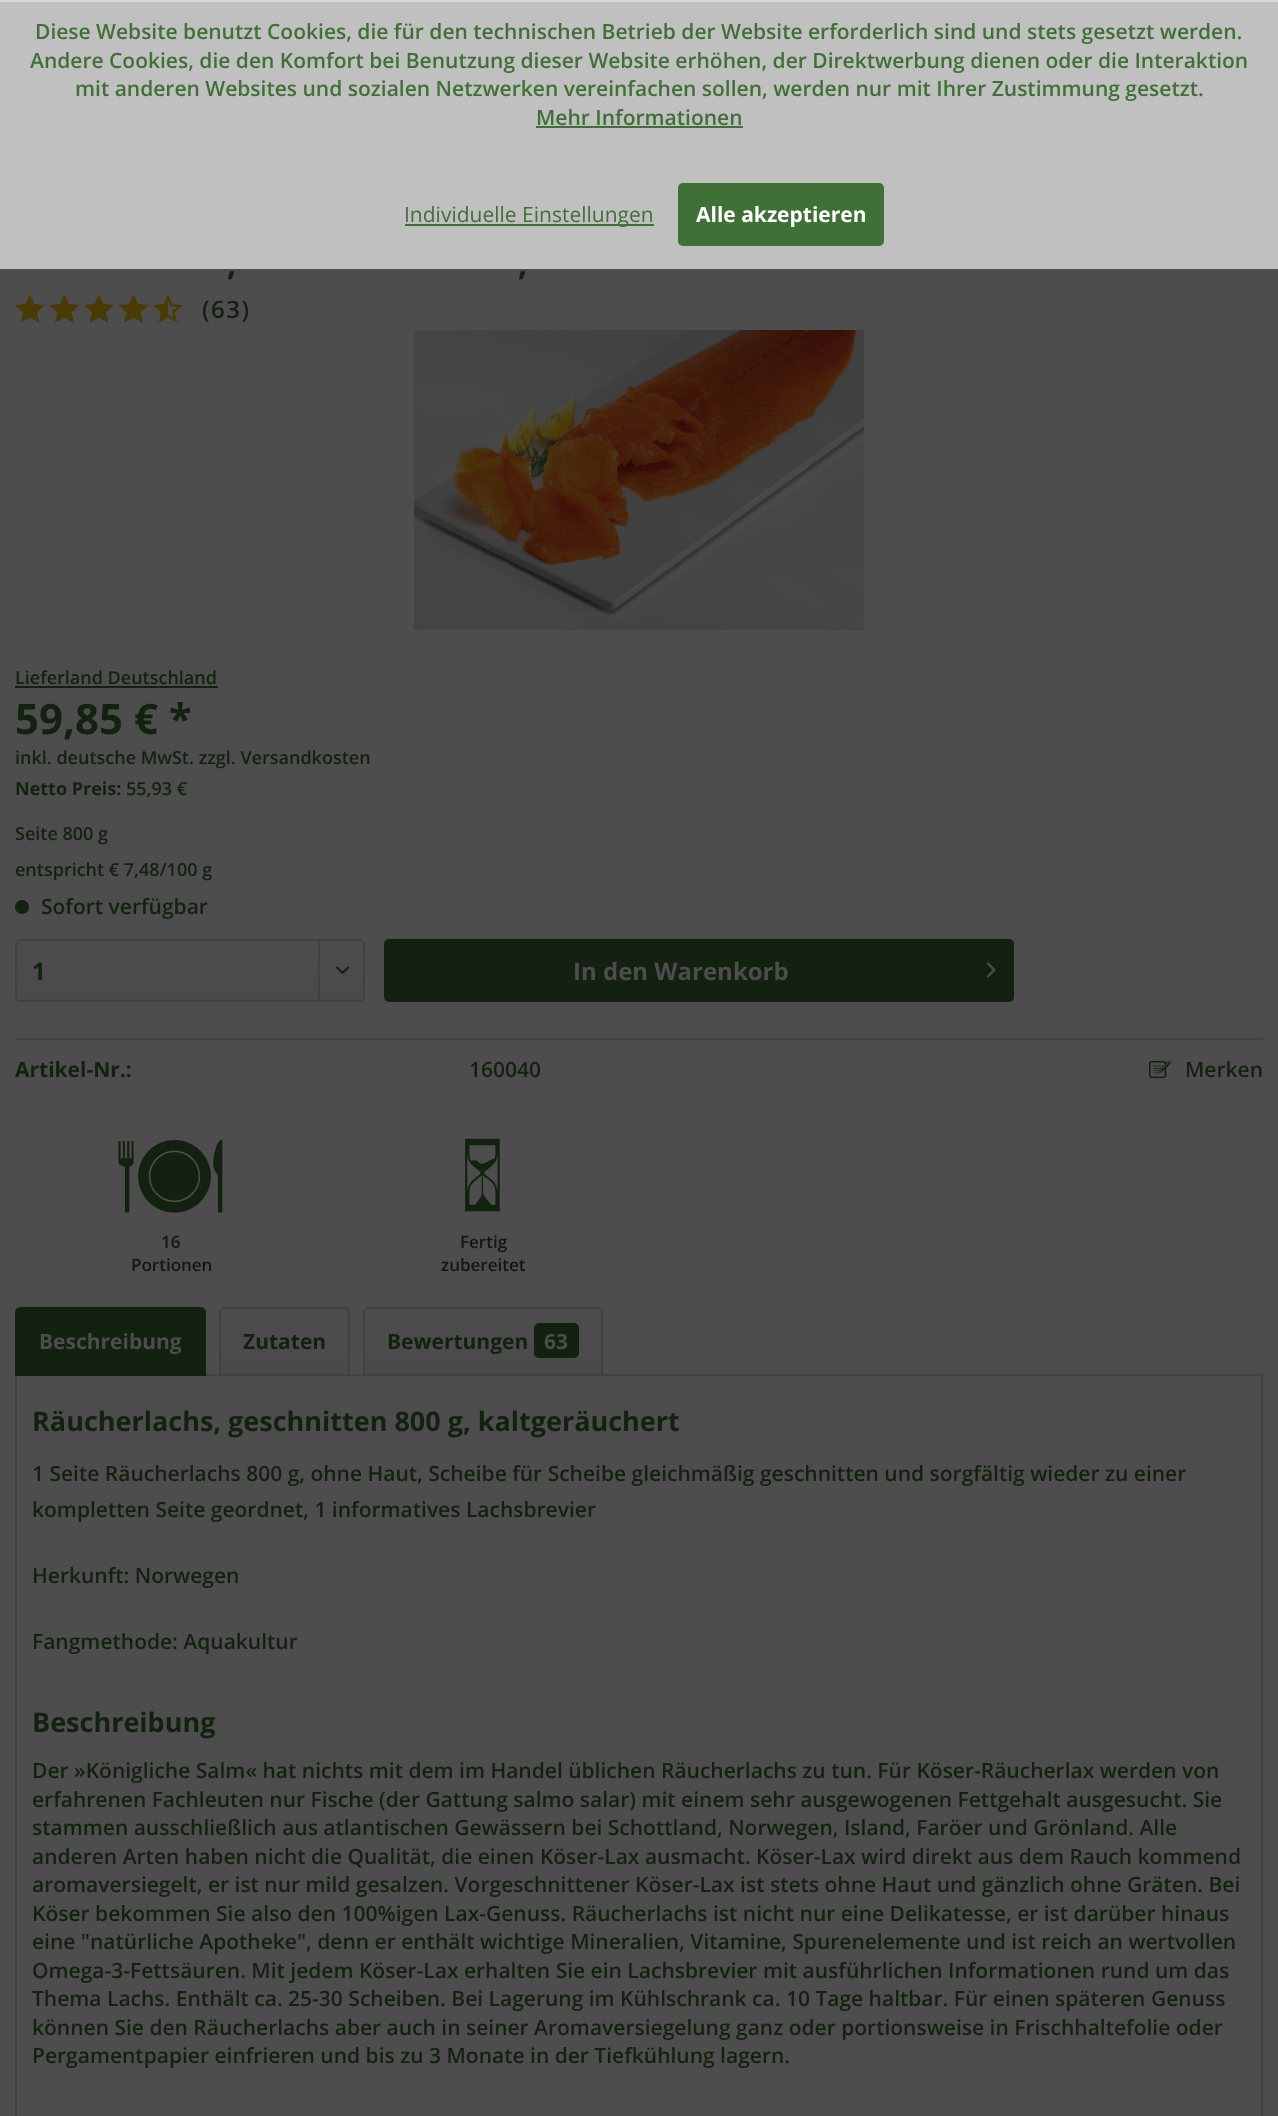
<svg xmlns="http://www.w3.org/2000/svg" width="1278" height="2116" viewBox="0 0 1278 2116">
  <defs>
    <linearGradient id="g1" gradientUnits="userSpaceOnUse" x1="190" y1="941" x2="190" y2="1001"><stop offset="0" stop-color="#4d4d4d"/><stop offset="1" stop-color="#4a4a4b"/></linearGradient>
    <linearGradient id="g2" gradientUnits="userSpaceOnUse" x1="284" y1="1308" x2="284" y2="1374"><stop offset="0" stop-color="#4d4d4d"/><stop offset="1" stop-color="#4a4a4b"/></linearGradient>
    <linearGradient id="g3" gradientUnits="userSpaceOnUse" x1="483" y1="1308" x2="483" y2="1374"><stop offset="0" stop-color="#4d4d4d"/><stop offset="1" stop-color="#4a4a4b"/></linearGradient>
  </defs>
  <rect width="100%" height="100%" fill="#4d4d4d"/>
  <rect x="0" y="2" width="1278" height="267" fill="#c0c0c0"/>
  <rect x="0" y="0" width="1278" height="2" fill="#d7d7e3"/>
  <text x="35" y="39" font-family="Open Sans" font-size="21" font-weight="600" fill="#3f7035">Diese Website benutzt Cookies, die für den technischen Betrieb der Website erforderlich sind und stets gesetzt werden.</text>
  <text x="30" y="68" font-family="Open Sans" font-size="21" font-weight="600" fill="#3f7035">Andere Cookies, die den Komfort bei Benutzung dieser Website erhöhen, der Direktwerbung dienen oder die Interaktion</text>
  <text x="75" y="96" font-family="Open Sans" font-size="21" font-weight="600" fill="#3f7035">mit anderen Websites und sozialen Netzwerken vereinfachen sollen, werden nur mit Ihrer Zustimmung gesetzt.</text>
  <text x="536" y="125" font-family="Open Sans" font-size="21" font-weight="600" fill="#3f7035">Mehr Informationen</text>
  <rect x="536" y="126" width="207" height="2" fill="#3f7035"/>
  <rect x="405" y="224" width="249" height="2" fill="#3f7035"/>
  <text x="404" y="222" font-family="Open Sans" font-size="21" fill="#3f7035">Individuelle Einstellungen</text>
  <rect x="678" y="183" width="206" height="63" rx="5" fill="#3f7035"/>
  <text x="696" y="222" font-family="Open Sans" font-size="21" font-weight="bold" fill="#ffffff">Alle akzeptieren</text>
  <text x="227" y="275" font-family="Open Sans" font-size="32" font-weight="bold" fill="#132210">,</text>
  <text x="518" y="275" font-family="Open Sans" font-size="32" font-weight="bold" fill="#132210">,</text>
  <path d="M30 294.5L25.5 304L15 305L23 312.5L20.5 323L30 317.5L39.5 323L37 312.5L45 305L34.5 304Z" fill="#483b05"/>
  <path d="M64.5 294.5L60 304L49.5 305L57.5 312.5L55 323L64.5 317.5L74 323L71.5 312.5L79.5 305L69 304Z" fill="#483b05"/>
  <path d="M99 294.5L94.5 304L84 305L92 312.5L89.5 323L99 317.5L108.5 323L106 312.5L114 305L103.5 304Z" fill="#483b05"/>
  <path d="M133.5 294.5L129 304L118.5 305L126.5 312.5L124 323L133.5 317.5L143 323L140.5 312.5L148.5 305L138 304Z" fill="#483b05"/>
  <image x="153" y="294" width="30" height="29" href="img1.png"/>
  <text x="202" y="318" font-family="Open Sans" font-size="24" font-weight="600" letter-spacing="1.5" fill="#132210">(63)</text>
  <image x="414" y="330" width="450" height="300" href="img2.png"/>
  <text x="15" y="684" font-family="Open Sans" font-size="18" font-weight="600" fill="#132210">Lieferland Deutschland</text>
  <rect x="15" y="686" width="203" height="2" fill="#132210"/>
  <text x="15" y="734" font-family="Open Sans" font-size="42" font-weight="bold" fill="#132210">59,85 € *</text>
  <text x="15" y="764" font-family="Open Sans" font-size="18" font-weight="600" fill="#132210">inkl. deutsche MwSt. zzgl. Versandkosten</text>
  <text x="15" y="795" font-family="Open Sans" font-size="18" font-weight="bold" fill="#132210">Netto Preis:</text>
  <text x="126" y="795" font-family="Open Sans" font-size="18" font-weight="600" fill="#132210">55,93 €</text>
  <text x="15" y="840" font-family="Open Sans" font-size="18" font-weight="600" fill="#132210">Seite 800 g</text>
  <text x="15" y="876" font-family="Open Sans" font-size="18" font-weight="600" fill="#132210">entspricht € 7,48/100 g</text>
  <circle cx="22" cy="907" r="7" fill="#132210"/>
  <text x="41" y="914" font-family="Open Sans" font-size="21" font-weight="600" fill="#132210">Sofort verfügbar</text>
  <rect x="17" y="941" width="346" height="60" rx="3" fill="url(#g1)"/>
  <rect x="16" y="940" width="348" height="61" rx="4" fill="none" stroke="#414144" stroke-width="2"/>
  <text x="32" y="980" font-family="Open Sans" font-size="24" font-weight="bold" fill="#132210">1</text>
  <rect x="318" y="941" width="2" height="60" fill="#414144"/>
  <image x="336" y="966" width="14" height="8" href="img3.png"/>
  <rect x="384" y="939" width="630" height="63" rx="5" fill="#132210"/>
  <text x="573" y="980" font-family="Open Sans" font-size="24" font-weight="bold" fill="#4d4d4d">In den Warenkorb</text>
  <image x="987" y="962" width="9" height="16" href="img4.png"/>
  <rect x="15" y="1038" width="1248" height="2" fill="#414144"/>
  <text x="15" y="1077" font-family="Open Sans" font-size="21" font-weight="bold" fill="#132210">Artikel-Nr.:</text>
  <text x="469" y="1077" font-family="Open Sans" font-size="21" font-weight="600" fill="#132210">160040</text>
  <image x="1149" y="1060" width="23" height="19" href="img5.png"/>
  <text x="1185" y="1077" font-family="Open Sans" font-size="21" font-weight="600" fill="#132210">Merken</text>
  <image x="118" y="1139" width="105" height="74" href="img6.png"/>
  <text x="161" y="1248" font-family="Open Sans" font-size="17" font-weight="600" fill="#0e1a0c">16</text>
  <text x="131" y="1271" font-family="Open Sans" font-size="17" font-weight="600" fill="#0e1a0c">Portionen</text>
  <image x="465" y="1138" width="35" height="74" href="img7.png"/>
  <text x="460" y="1248" font-family="Open Sans" font-size="17" font-weight="600" fill="#0e1a0c">Fertig</text>
  <text x="441" y="1271" font-family="Open Sans" font-size="17" font-weight="600" fill="#0e1a0c">zubereitet</text>
  <rect x="16" y="1375" width="1246" height="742" fill="none" stroke="#414144" stroke-width="2"/>
  <path d="M20 1308H201C203 1308 205 1310 205 1312V1375H16V1312C16 1310 18 1308 20 1308Z" fill="#132210" stroke="#132210" stroke-width="2"/>
  <text x="39" y="1349" font-family="Open Sans" font-size="21" font-weight="bold" fill="#4d4d4d">Beschreibung</text>
  <path d="M224 1308H345C346.5 1308 348 1309.5 348 1311V1374H221V1311C221 1309.5 222.5 1308 224 1308Z" fill="url(#g2)"/>
  <path d="M224 1308H345C347 1308 349 1310 349 1312V1375H220V1312C220 1310 222 1308 224 1308Z" fill="none" stroke="#414144" stroke-width="2"/>
  <text x="243" y="1349" font-family="Open Sans" font-size="21" font-weight="bold" fill="#132210">Zutaten</text>
  <path d="M368 1308H599C600.5 1308 602 1309.5 602 1311V1374H365V1311C365 1309.5 366.5 1308 368 1308Z" fill="url(#g3)"/>
  <path d="M368 1308H598C600 1308 602 1310 602 1312V1375H364V1312C364 1310 366 1308 368 1308Z" fill="none" stroke="#414144" stroke-width="2"/>
  <text x="387" y="1349" font-family="Open Sans" font-size="21" font-weight="bold" fill="#132210">Bewertungen</text>
  <rect x="534" y="1323" width="45" height="35" rx="5" fill="#132210"/>
  <text x="544" y="1349" font-family="Open Sans" font-size="21" font-weight="bold" fill="#4d4d4d">63</text>
  <text x="32" y="1431" font-family="Open Sans" font-size="27" font-weight="bold" fill="#132210">Räucherlachs, geschnitten 800 g, kaltgeräuchert</text>
  <text x="32" y="1481" font-family="Open Sans" font-size="21" font-weight="600" fill="#132210">1 Seite Räucherlachs 800 g, ohne Haut, Scheibe für Scheibe gleichmäßig geschnitten und sorgfältig wieder zu einer</text>
  <text x="32" y="1517" font-family="Open Sans" font-size="21" font-weight="600" fill="#132210">kompletten Seite geordnet, 1 informatives Lachsbrevier</text>
  <text x="32" y="1583" font-family="Open Sans" font-size="21" font-weight="600" fill="#132210">Herkunft: Norwegen</text>
  <text x="32" y="1649" font-family="Open Sans" font-size="21" font-weight="600" fill="#132210">Fangmethode: Aquakultur</text>
  <text x="32" y="1732" font-family="Open Sans" font-size="27" font-weight="bold" fill="#132210">Beschreibung</text>
  <text x="32" y="1778" font-family="Open Sans" font-size="21" font-weight="600" fill="#132210">Der »Königliche Salm« hat nichts mit dem im Handel üblichen Räucherlachs zu tun. Für Köser-Räucherlax werden von</text>
  <text x="32" y="1807" font-family="Open Sans" font-size="21" font-weight="600" fill="#132210">erfahrenen Fachleuten nur Fische (der Gattung salmo salar) mit einem sehr ausgewogenen Fettgehalt ausgesucht. Sie</text>
  <text x="32" y="1835" font-family="Open Sans" font-size="21" font-weight="600" fill="#132210">stammen ausschließlich aus atlantischen Gewässern bei Schottland, Norwegen, Island, Faröer und Grönland. Alle</text>
  <text x="32" y="1864" font-family="Open Sans" font-size="21" font-weight="600" fill="#132210">anderen Arten haben nicht die Qualität, die einen Köser-Lax ausmacht. Köser-Lax wird direkt aus dem Rauch kommend</text>
  <text x="32" y="1892" font-family="Open Sans" font-size="21" font-weight="600" fill="#132210">aromaversiegelt, er ist nur mild gesalzen. Vorgeschnittener Köser-Lax ist stets ohne Haut und gänzlich ohne Gräten. Bei</text>
  <text x="32" y="1921" font-family="Open Sans" font-size="21" font-weight="600" fill="#132210">Köser bekommen Sie also den 100%igen Lax-Genuss. Räucherlachs ist nicht nur eine Delikatesse, er ist darüber hinaus</text>
  <text x="32" y="1949" font-family="Open Sans" font-size="21" font-weight="600" fill="#132210">eine "natürliche Apotheke", denn er enthält wichtige Mineralien, Vitamine, Spurenelemente und ist reich an wertvollen</text>
  <text x="32" y="1978" font-family="Open Sans" font-size="21" font-weight="600" fill="#132210">Omega-3-Fettsäuren. Mit jedem Köser-Lax erhalten Sie ein Lachsbrevier mit ausführlichen Informationen rund um das</text>
  <text x="32" y="2006" font-family="Open Sans" font-size="21" font-weight="600" fill="#132210">Thema Lachs. Enthält ca. 25-30 Scheiben. Bei Lagerung im Kühlschrank ca. 10 Tage haltbar. Für einen späteren Genuss</text>
  <text x="32" y="2035" font-family="Open Sans" font-size="21" font-weight="600" fill="#132210">können Sie den Räucherlachs aber auch in seiner Aromaversiegelung ganz oder portionsweise in Frischhaltefolie oder</text>
  <text x="32" y="2063" font-family="Open Sans" font-size="21" font-weight="600" fill="#132210">Pergamentpapier einfrieren und bis zu 3 Monate in der Tiefkühlung lagern.</text>
</svg>
